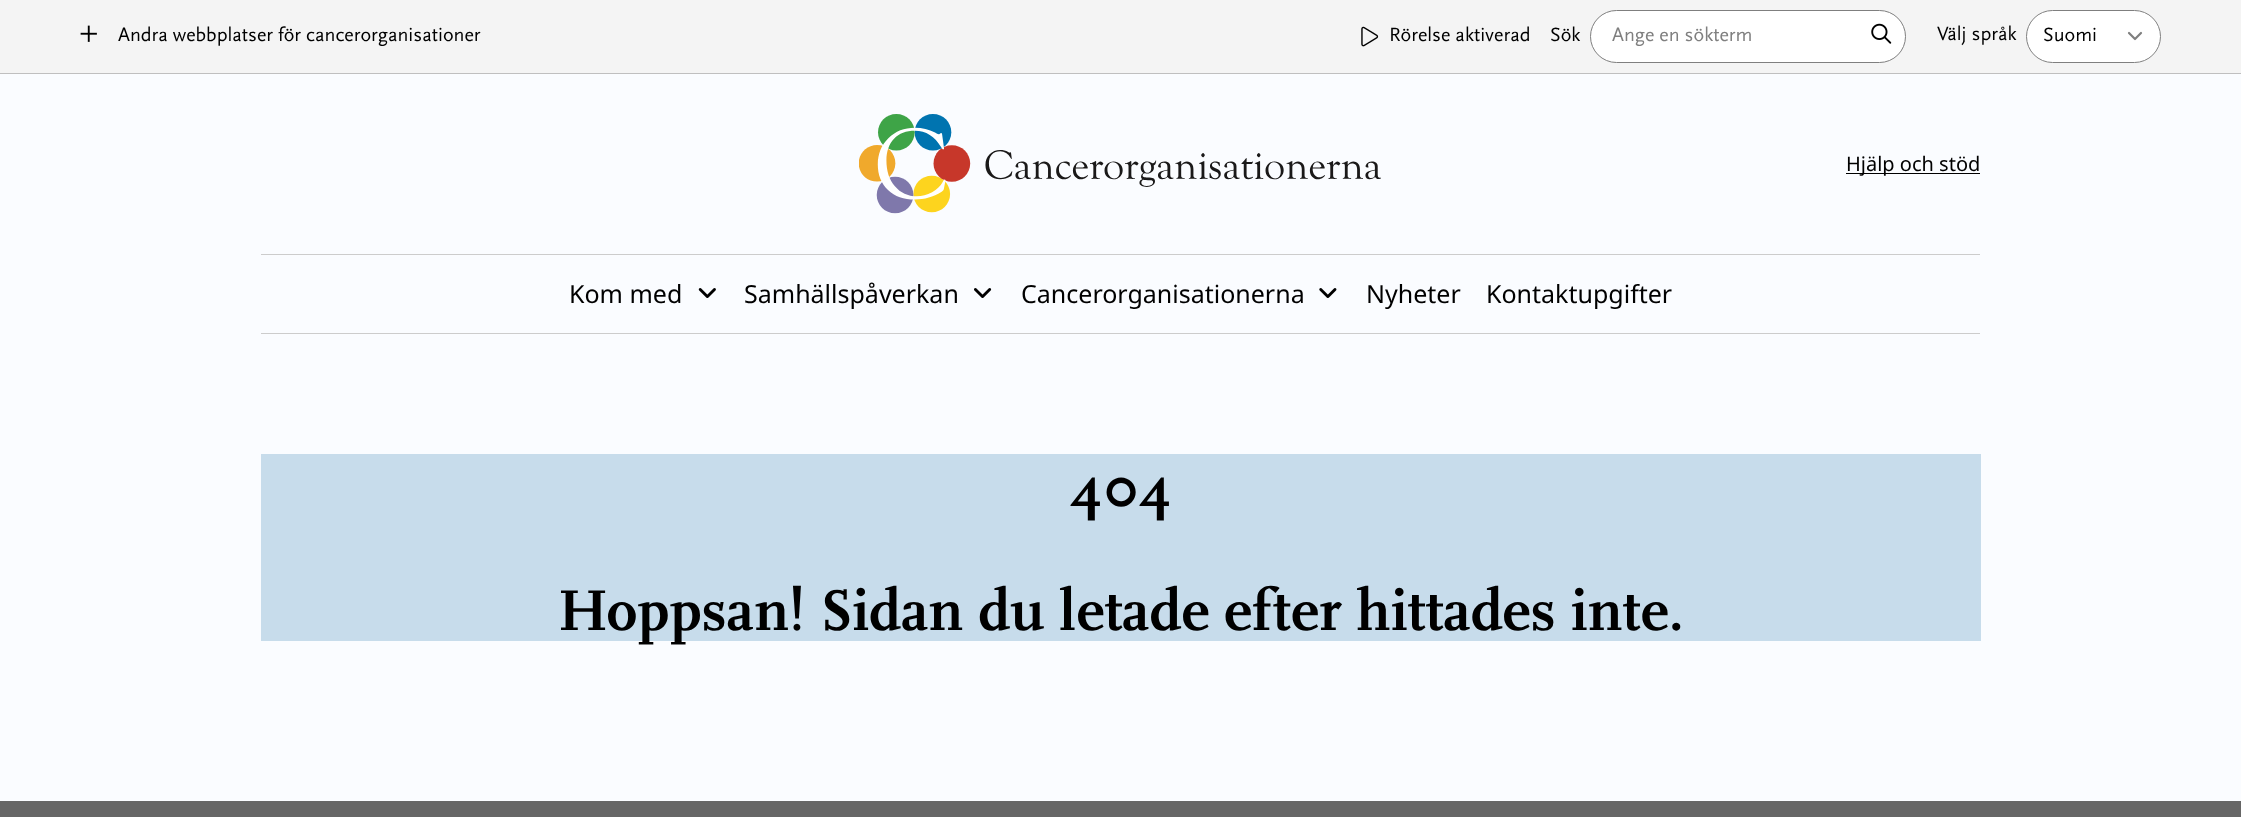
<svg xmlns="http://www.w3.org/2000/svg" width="2241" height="817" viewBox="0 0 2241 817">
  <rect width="100%" height="100%" fill="#fafcff"/>
  <rect x="0" y="0" width="2241" height="73" fill="#f4f4f4"/>
  <rect x="0" y="73" width="2241" height="1" fill="#bfbfbf"/>
  <image x="80" y="25" width="17" height="17" href="img1.png"/>
  <text x="118" y="41" font-family="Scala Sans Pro" font-size="20" fill="#000000">Andra webbplatser för cancerorganisationer</text>
  <image x="1361" y="26" width="18" height="21" href="img2.png"/>
  <text x="1389" y="41" font-family="Scala Sans Pro" font-size="20" fill="#000000">Rörelse aktiverad</text>
  <text x="1550" y="41" font-family="Scala Sans Pro" font-size="20" fill="#000000">Sök</text>
  <rect x="1590.5" y="10.5" width="315" height="52" rx="26" fill="#ffffff" stroke="#7f7f7f"/>
  <text x="1612" y="41" font-family="Scala Sans Pro" font-size="20" fill="#7f7f7f">Ange en sökterm</text>
  <image x="1871" y="23" width="21" height="21" href="img3.png"/>
  <text x="1937" y="40" font-family="Scala Sans Pro" font-size="20" fill="#000000">Välj språk</text>
  <rect x="2026" y="10" width="135" height="53" rx="26.5" fill="#ffffff"/>
  <path d="M2129 33L2135 39L2141 33" fill="none" stroke="#7f7f7f" stroke-width="2.2" stroke-linecap="round" stroke-linejoin="round"/>
  <rect x="2026.5" y="10.5" width="134" height="52" rx="26" fill="none" stroke="#7f7f7f"/>
  <text x="2043" y="41" font-family="Scala Sans Pro" font-size="20" fill="#000000">Suomi</text>
  <image x="859" y="114" width="522" height="100" href="img4.png"/>
  <rect x="1846" y="173" width="134" height="1" fill="#000000"/>
  <text x="1846" y="171" font-family="Noto Sans" font-size="20" fill="#000000">Hjälp och stöd</text>
  <rect x="261" y="254" width="1719" height="1" fill="#cccccc"/>
  <rect x="261" y="333" width="1719" height="1" fill="#cccccc"/>
  <text x="569" y="303" font-family="Noto Sans" font-size="25" fill="#000000">Kom med</text>
  <image x="698" y="288" width="18" height="10" href="img5.png"/>
  <text x="744" y="303" font-family="Noto Sans" font-size="25" fill="#000000">Samhällspåverkan</text>
  <image x="974" y="288" width="18" height="10" href="img6.png"/>
  <text x="1021" y="303" font-family="Noto Sans" font-size="25" fill="#000000">Cancerorganisationerna</text>
  <image x="1319" y="288" width="18" height="10" href="img7.png"/>
  <text x="1366" y="303" font-family="Noto Sans" font-size="25" fill="#000000">Nyheter</text>
  <text x="1486" y="303" font-family="Noto Sans" font-size="25" fill="#000000">Kontaktupgifter</text>
  <rect x="261" y="454" width="1720" height="187" fill="#c7dceb"/>
  <text x="1070" y="506" font-family="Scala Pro" font-size="60" font-weight="bold" fill="#000000">404</text>
  <text x="558" y="630" font-family="Scala Pro" font-size="60" font-weight="bold" fill="#000000">Hoppsan! Sidan du letade efter hittades inte.</text>
  <rect x="0" y="801" width="2241" height="16" fill="#666666"/>
</svg>
